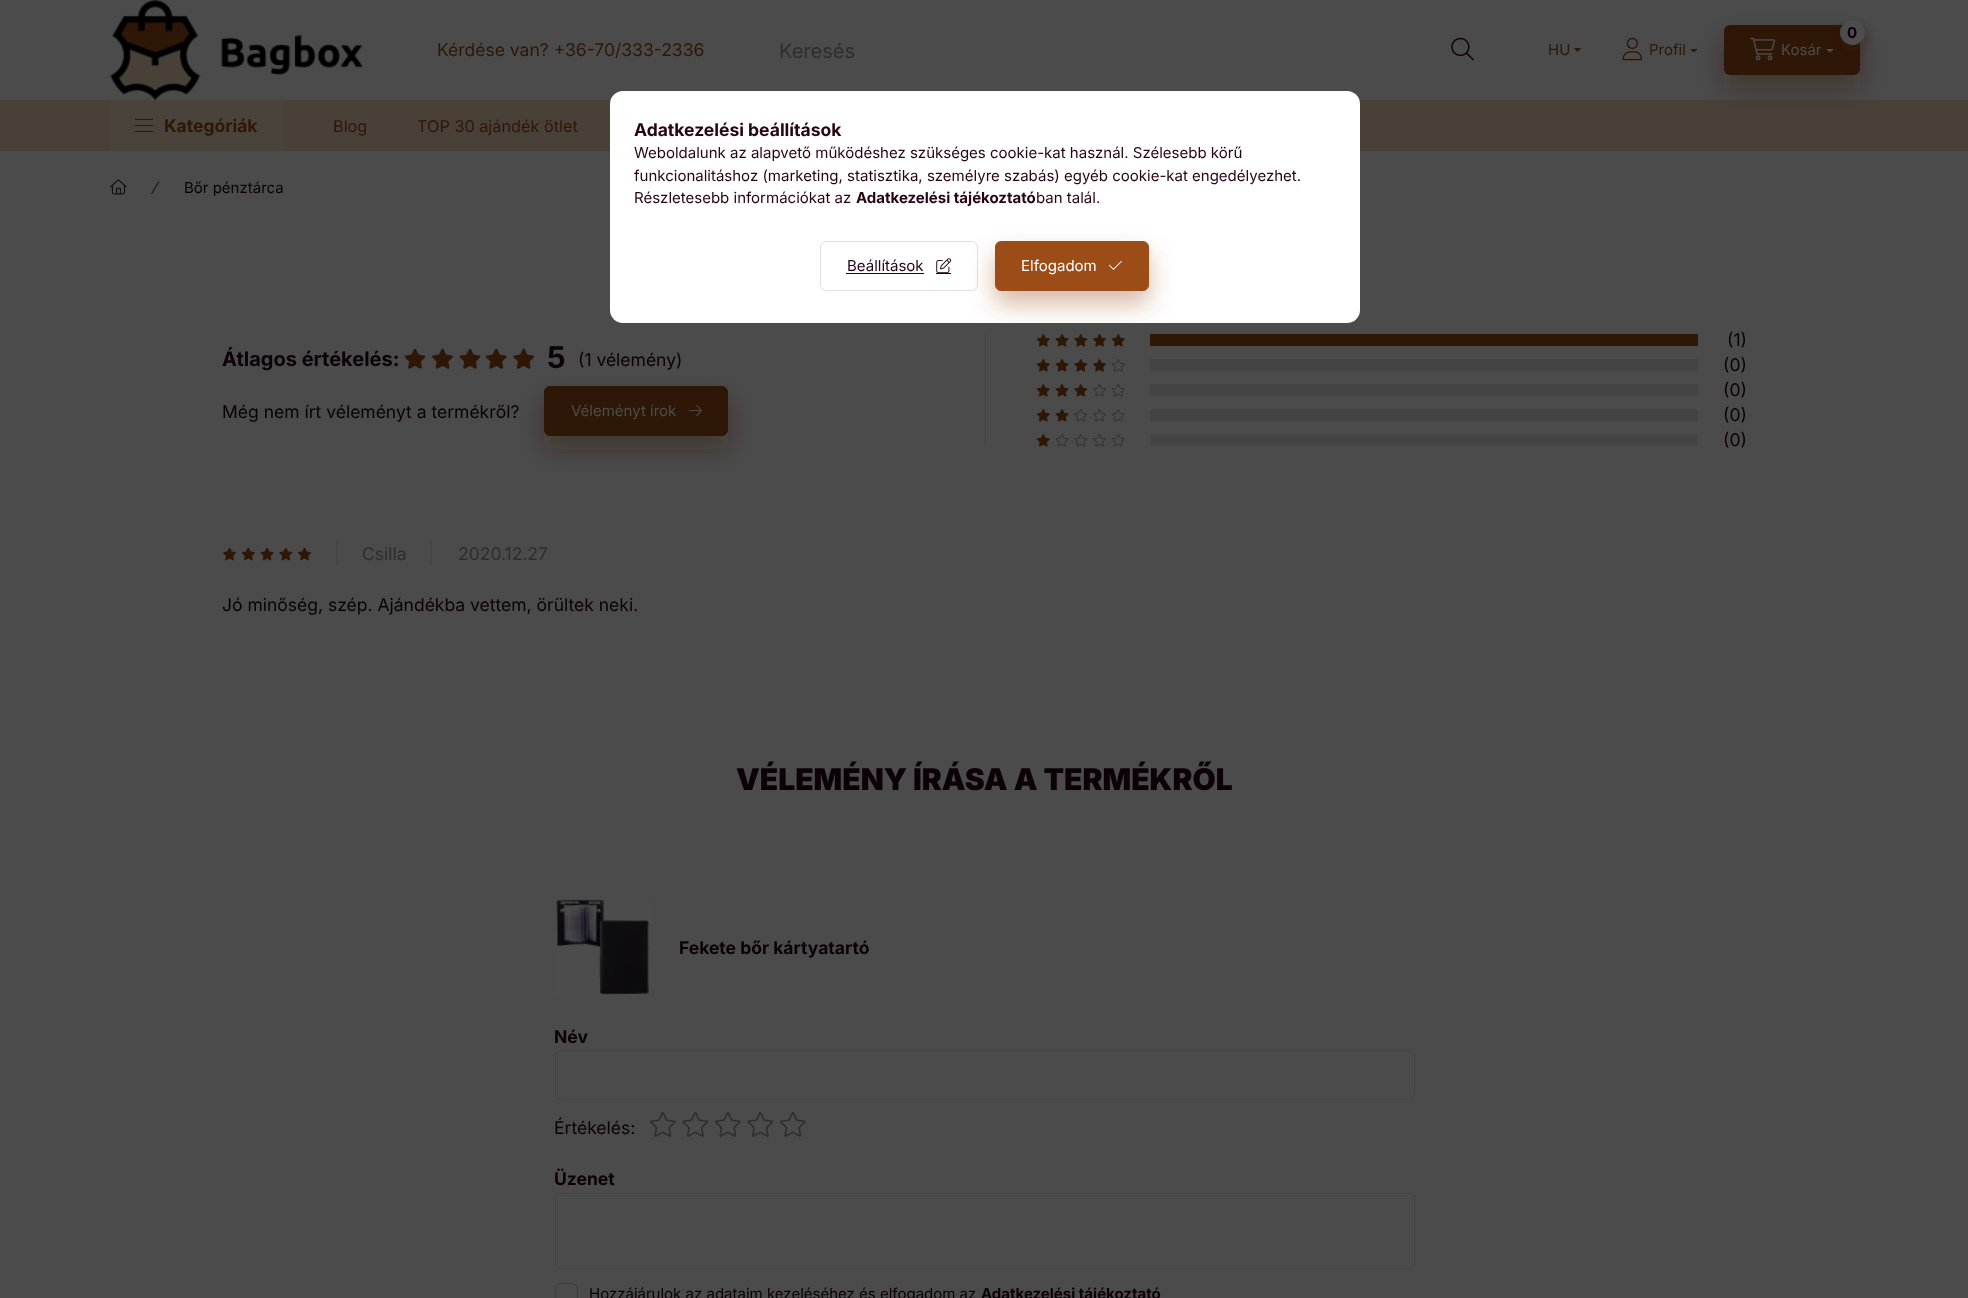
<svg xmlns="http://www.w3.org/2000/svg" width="1968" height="1298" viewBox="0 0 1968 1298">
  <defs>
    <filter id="blur1" x="-50%" y="-200%" width="200%" height="500%"><feGaussianBlur stdDeviation="12.5"/></filter>
    <filter id="blur2" x="-50%" y="-200%" width="200%" height="500%"><feGaussianBlur stdDeviation="6"/></filter>
    <clipPath id="clip1"><rect x="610" y="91" width="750" height="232" rx="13"/></clipPath>
  </defs>
  <rect width="100%" height="100%" fill="#4b4b4b"/>
  <image x="110" y="0" width="253" height="100" href="img1.png"/>
  <text x="437" y="56" font-family="Inter" font-size="17.5" fill="#2f1707">Kérdése van? +36-70/333-2336</text>
  <text x="779" y="58" font-family="Inter" font-size="20" fill="#2e2e2e">Keresés</text>
  <image x="1451" y="37" width="23" height="24" href="img2.png"/>
  <text x="1548" y="55" font-family="Inter" font-size="15" fill="#2f1707">HU</text>
  <path d="M1574 48H1581L1577.5 52Z" fill="#2f1707"/>
  <image x="1622" y="37" width="21" height="24" href="img3.png"/>
  <text x="1649" y="55" font-family="Inter" font-size="15" fill="#2f1707">Profil</text>
  <rect x="0" y="100" width="1968" height="51" fill="#494138"/>
  <rect x="1724" y="38" width="136" height="50" rx="6" fill="#2f1707" fill-opacity="0.4" filter="url(#blur1)"/>
  <path d="M1690 49H1697.5L1694 52.5Z" fill="#2f1707"/>
  <rect x="1724" y="25" width="136" height="50" rx="6" fill="#2f1707"/>
  <rect x="1840" y="26" width="25" height="25" rx="12.5" fill="#2f1707" fill-opacity="0.4" filter="url(#blur2)"/>
  <circle cx="1852.5" cy="32.5" r="12.5" fill="#4d4d4d"/>
  <text x="1847" y="38" font-family="Inter" font-size="15" font-weight="bold" fill="#0b0106">0</text>
  <image x="1750" y="37" width="26" height="24" href="img4.png"/>
  <text x="1781" y="55" font-family="Inter" font-size="15" fill="#4d4d4d">Kosár</text>
  <path d="M1826 49H1834L1830 52.5Z" fill="#4d4d4d"/>
  <rect x="110" y="100" width="173" height="51" fill="#4a433b"/>
  <rect x="135" y="119" width="18" height="1" fill="#2f1707"/>
  <rect x="135" y="125" width="18" height="1" fill="#2f1707"/>
  <rect x="135" y="131" width="18" height="1" fill="#2f1707"/>
  <text x="164" y="132" font-family="Inter" font-size="17.5" font-weight="bold" fill="#2f1707">Kategóriák</text>
  <text x="333" y="132" font-family="Inter" font-size="16.25" fill="#2f1707">Blog</text>
  <text x="417" y="132" font-family="Inter" font-size="16.25" fill="#2f1707">TOP 30 ajándék ötlet</text>
  <image x="110" y="179" width="17" height="16" href="img5.png"/>
  <image x="151" y="181" width="8" height="13" href="img6.png"/>
  <text x="184" y="193" font-family="Inter" font-size="15" fill="#0b0106">Bőr pénztárca</text>
  <text x="222" y="366" font-family="Inter" font-size="20" font-weight="bold" fill="#0b0106">Átlagos értékelés:</text>
  <image x="404" y="348" width="22" height="21" href="img7.png"/>
  <image x="432" y="348" width="21" height="21" href="img8.png"/>
  <image x="459" y="348" width="22" height="21" href="img7.png"/>
  <rect x="544" y="399" width="184" height="50" rx="6" fill="#2f1707" fill-opacity="0.4" filter="url(#blur1)"/>
  <image x="486" y="348" width="21" height="21" href="img9.png"/>
  <image x="513" y="348" width="22" height="21" href="img10.png"/>
  <text x="547" y="368" font-family="Inter" font-size="30" font-weight="bold" fill="#0b0106">5</text>
  <text x="578" y="366" font-family="Inter" font-size="17.5" fill="#0b0106">(1 vélemény)</text>
  <text x="222" y="418" font-family="Inter" font-size="17.5" fill="#0b0106">Még nem írt véleményt a termékről?</text>
  <rect x="544.5" y="386.5" width="183" height="49" rx="5.5" fill="#2f1707" stroke="#2f1707"/>
  <text x="571" y="416" font-family="Inter" font-size="15" fill="#4d4d4d">Véleményt írok</text>
  <image x="688" y="405" width="14" height="12" href="img11.png"/>
  <rect x="985" y="334" width="1" height="112" fill="#444444"/>
  <image x="1036" y="334" width="14" height="13" href="img12.png"/>
  <image x="1055" y="334" width="14" height="13" href="img13.png"/>
  <image x="1074" y="334" width="14" height="13" href="img14.png"/>
  <image x="1093" y="334" width="13" height="13" href="img15.png"/>
  <image x="1111" y="334" width="14" height="13" href="img12.png"/>
  <rect x="1150" y="334" width="548" height="12" fill="#2f1707"/>
  <text x="1727" y="346" font-family="Inter" font-size="17.5" fill="#0b0106">(1)</text>
  <image x="1036" y="359" width="14" height="13" href="img12.png"/>
  <image x="1055" y="359" width="14" height="13" href="img13.png"/>
  <image x="1074" y="359" width="14" height="13" href="img14.png"/>
  <image x="1093" y="359" width="13" height="13" href="img15.png"/>
  <image x="1111" y="359" width="14" height="13" href="img16.png"/>
  <rect x="1150" y="359" width="548" height="12" fill="#444444"/>
  <text x="1723" y="371" font-family="Inter" font-size="17.5" fill="#0b0106">(0)</text>
  <image x="1036" y="384" width="14" height="13" href="img12.png"/>
  <image x="1055" y="384" width="14" height="13" href="img13.png"/>
  <image x="1074" y="384" width="14" height="13" href="img14.png"/>
  <image x="1093" y="384" width="13" height="13" href="img17.png"/>
  <image x="1111" y="384" width="14" height="13" href="img16.png"/>
  <rect x="1150" y="384" width="548" height="12" fill="#444444"/>
  <text x="1723" y="396" font-family="Inter" font-size="17.5" fill="#0b0106">(0)</text>
  <image x="1036" y="409" width="14" height="13" href="img12.png"/>
  <image x="1055" y="409" width="14" height="13" href="img13.png"/>
  <image x="1074" y="409" width="14" height="13" href="img18.png"/>
  <image x="1093" y="409" width="13" height="13" href="img17.png"/>
  <image x="1111" y="409" width="14" height="13" href="img16.png"/>
  <rect x="1150" y="409" width="548" height="12" fill="#444444"/>
  <text x="1723" y="421" font-family="Inter" font-size="17.5" fill="#0b0106">(0)</text>
  <image x="1036" y="434" width="14" height="13" href="img12.png"/>
  <image x="1055" y="434" width="14" height="13" href="img19.png"/>
  <image x="1074" y="434" width="14" height="13" href="img18.png"/>
  <image x="1093" y="434" width="13" height="13" href="img17.png"/>
  <image x="1111" y="434" width="14" height="13" href="img16.png"/>
  <rect x="1150" y="434" width="548" height="12" fill="#444444"/>
  <text x="1723" y="446" font-family="Inter" font-size="17.5" fill="#0b0106">(0)</text>
  <image x="223" y="547" width="13" height="14" href="img20.png"/>
  <image x="241" y="547" width="14" height="14" href="img21.png"/>
  <image x="260" y="547" width="14" height="14" href="img22.png"/>
  <image x="279" y="547" width="14" height="14" href="img23.png"/>
  <image x="298" y="547" width="13" height="14" href="img20.png"/>
  <rect x="336" y="540" width="1" height="26" fill="#444444"/>
  <text x="362" y="560" font-family="Inter" font-size="17.5" fill="#2e2e2e">Csilla</text>
  <rect x="431" y="540" width="1" height="26" fill="#444444"/>
  <text x="458" y="560" font-family="Inter" font-size="17.5" fill="#2e2e2e">2020.12.27</text>
  <text x="222" y="611" font-family="Inter" font-size="17.5" fill="#0b0106">Jó minőség, szép. Ajándékba vettem, örültek neki.</text>
  <text x="736" y="790" font-family="Inter" font-size="30" font-weight="900" fill="#0b0106">VÉLEMÉNY ÍRÁSA A TERMÉKRŐL</text>
  <image x="555" y="897" width="95" height="101" href="img24.png"/>
  <text x="679" y="954" font-family="Inter" font-size="17.5" font-weight="bold" fill="#0b0106">Fekete bőr kártyatartó</text>
  <text x="554" y="1043" font-family="Inter" font-size="17.5" font-weight="bold" fill="#0b0106">Név</text>
  <rect x="555.5" y="1050.5" width="859" height="49" rx="5.5" fill="none" stroke="#444444"/>
  <text x="554" y="1134" font-family="Inter" font-size="17.5" fill="#0b0106">Értékelés:</text>
  <image x="650" y="1111" width="26" height="26" href="img25.png"/>
  <image x="682" y="1111" width="27" height="26" href="img26.png"/>
  <image x="715" y="1111" width="26" height="26" href="img25.png"/>
  <image x="747" y="1111" width="27" height="26" href="img26.png"/>
  <image x="780" y="1111" width="26" height="26" href="img25.png"/>
  <text x="554" y="1185" font-family="Inter" font-size="17.5" font-weight="bold" fill="#0b0106">Üzenet</text>
  <rect x="555.5" y="1193.5" width="859" height="75" rx="5.5" fill="none" stroke="#444444"/>
  <rect x="555.5" y="1283.5" width="22" height="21" rx="5.5" fill="none" stroke="#3d3d3d"/>
  <text x="589" y="1299" font-family="Inter" font-size="15" fill="#0b0106">Hozzájárulok az adataim kezeléséhez és elfogadom az</text>
  <text x="981" y="1299" font-family="Inter" font-size="15" font-weight="bold" fill="#0b0106">Adatkezelési tájékoztató</text>
  <rect x="610" y="91" width="750" height="232" rx="13" fill="#ffffff"/>
  <text x="634" y="136" font-family="Inter" font-size="17.5" font-weight="bold" fill="#260413">Adatkezelési beállítások</text>
  <text x="634" y="158" font-family="Inter" font-size="15" fill="#260413">Weboldalunk az alapvető működéshez szükséges cookie-kat használ. Szélesebb körű</text>
  <text x="634" y="181" font-family="Inter" font-size="15" fill="#260413">funkcionalitáshoz (marketing, statisztika, személyre szabás) egyéb cookie-kat engedélyezhet.</text>
  <text x="634" y="203" font-family="Inter" font-size="15" fill="#260413">Részletesebb információkat az</text>
  <text x="856" y="203" font-family="Inter" font-size="15" font-weight="bold" fill="#260413">Adatkezelési tájékoztató</text>
  <text x="1036" y="203" font-family="Inter" font-size="15" fill="#260413">ban talál.</text>
  <rect x="820.5" y="241.5" width="157" height="49" rx="5.5" fill="none" stroke="#e1e1e1"/>
  <text x="847" y="271" font-family="Inter" font-size="15" fill="#260413">Beállítások</text>
  <rect x="846" y="273" width="78" height="1" fill="#260413"/>
  <image x="936" y="258" width="16" height="15" href="img27.png"/>
  <rect x="936" y="273" width="15" height="1" fill="#260413"/>
  <g clip-path="url(#clip1)">
    <rect x="995" y="254" width="154" height="50" rx="6" fill="#9c4c16" fill-opacity="0.4" filter="url(#blur1)"/>
  </g>
  <rect x="995.5" y="241.5" width="153" height="49" rx="5.5" fill="#9c4c16" stroke="#9c4c16"/>
  <text x="1021" y="271" font-family="Inter" font-size="15" fill="#ffffff">Elfogadom</text>
  <image x="1108" y="261" width="14" height="9" href="img28.png"/>
</svg>
